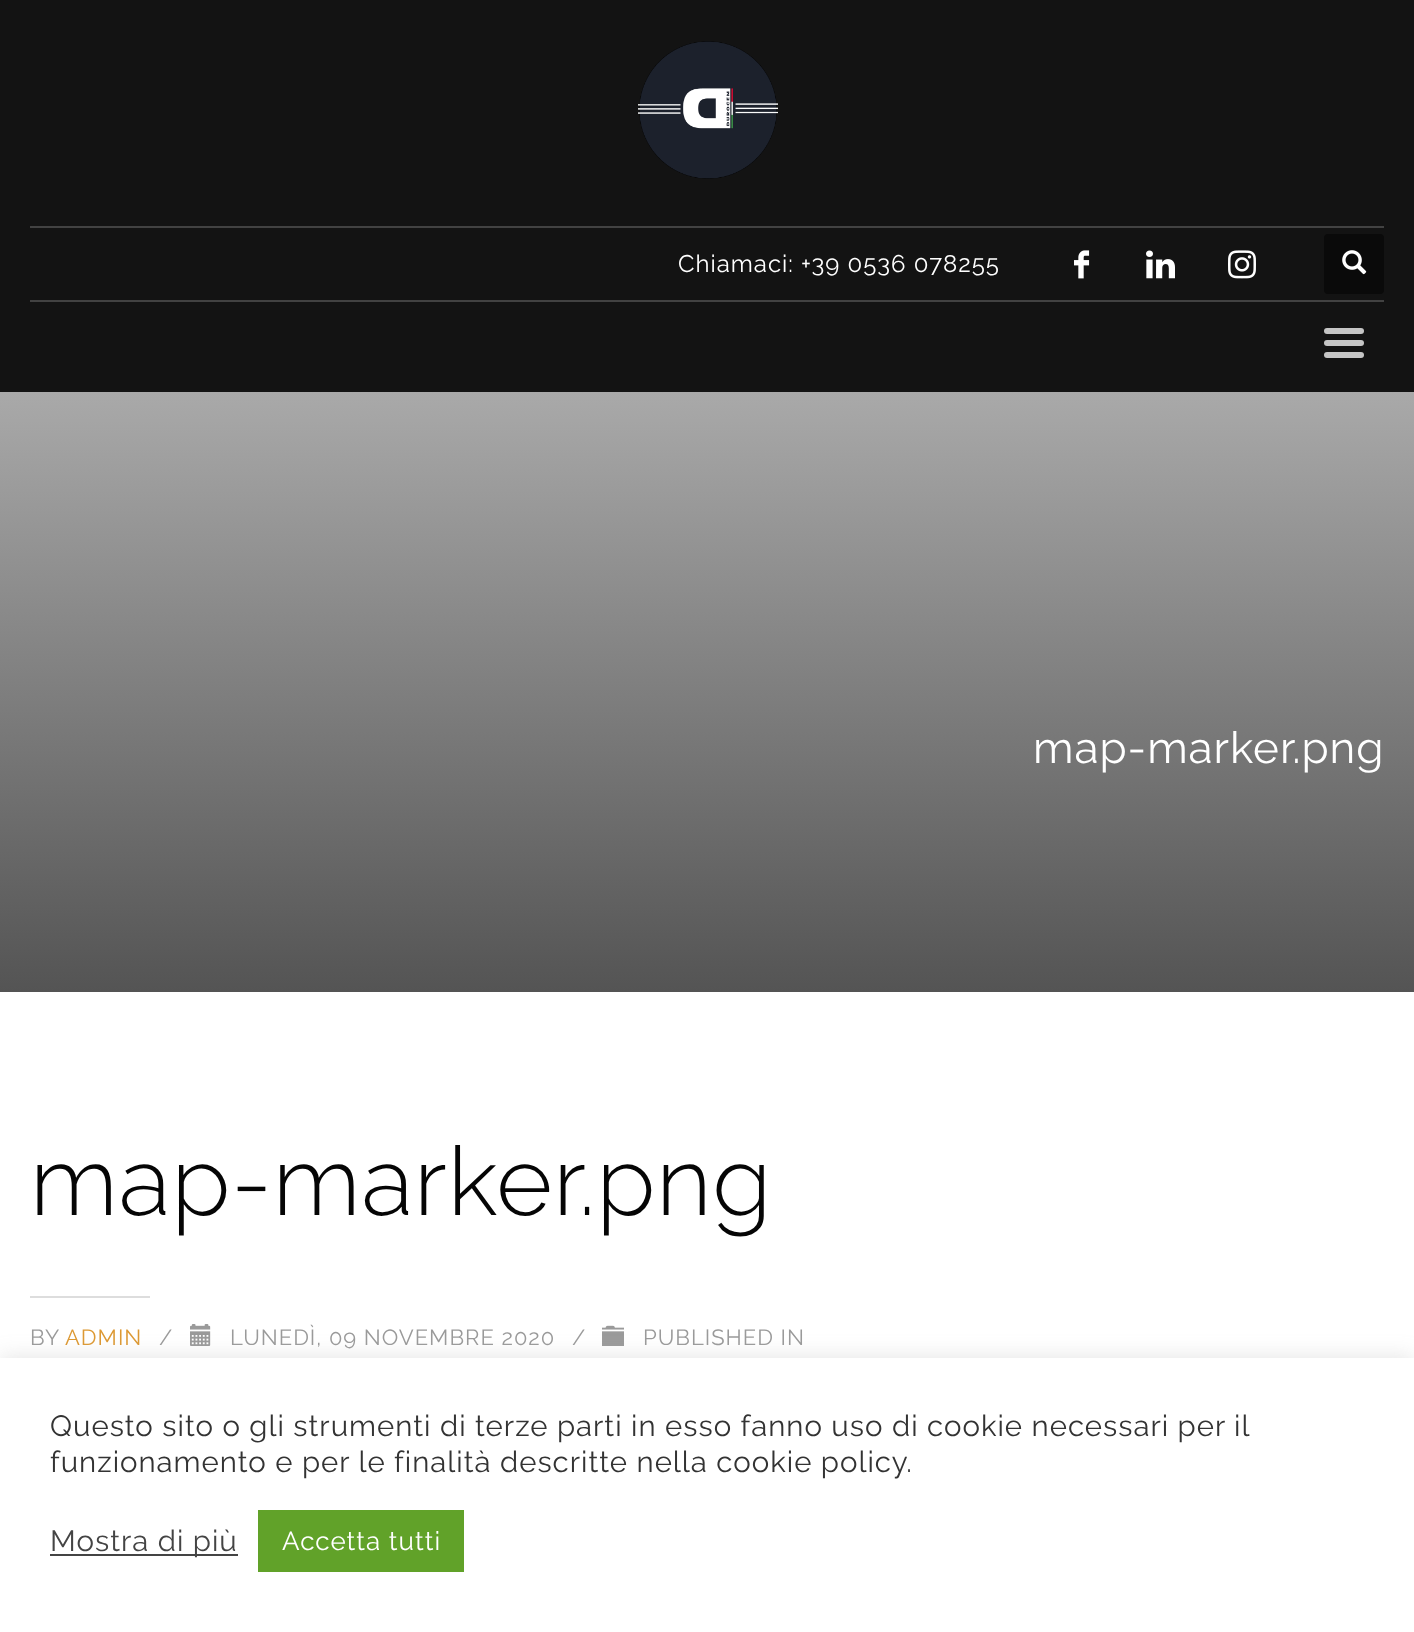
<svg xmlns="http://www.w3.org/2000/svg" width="1414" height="1632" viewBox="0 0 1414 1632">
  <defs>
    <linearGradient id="g1" gradientUnits="userSpaceOnUse" x1="707" y1="392" x2="707" y2="992"><stop offset="0" stop-color="#a9a9a9"/><stop offset="1" stop-color="#545454"/></linearGradient>
    <filter id="blur1" x="-50%" y="-200%" width="200%" height="500%"><feGaussianBlur stdDeviation="10"/></filter>
  </defs>
  <rect width="100%" height="100%" fill="#ffffff"/>
  <rect x="0" y="0" width="1414" height="392" fill="#131313"/>
  <image x="638" y="41" width="140" height="138" href="img1.png"/>
  <rect x="30" y="226" width="1354" height="2" fill="#424242"/>
  <text x="678" y="272" font-family="Raleway" font-size="24" letter-spacing="1" fill="#ffffff">Chiamaci: +39 0536 078255</text>
  <image x="1074" y="250" width="16" height="29" href="img2.png"/>
  <image x="1146" y="250" width="29" height="29" href="img3.png"/>
  <image x="1228" y="250" width="28" height="29" href="img4.png"/>
  <rect x="1324" y="234" width="60" height="60" rx="4" fill="#0a0a0a"/>
  <image x="1342" y="250" width="25" height="25" href="img5.png"/>
  <rect x="30" y="300" width="1354" height="2" fill="#424242"/>
  <rect x="1324" y="328" width="40" height="6" rx="3" fill="#c5c5c5"/>
  <rect x="1324" y="340" width="40" height="6" rx="3" fill="#c5c5c5"/>
  <rect x="1324" y="352" width="40" height="6" rx="3" fill="#c5c5c5"/>
  <rect x="0" y="392" width="1414" height="600" fill="url(#g1)"/>
  <text x="1033" y="763" font-family="Raleway" font-size="44" letter-spacing="1" fill="#ffffff">map-marker.png</text>
  <text x="30" y="1215" font-family="Raleway" font-size="96" font-weight="300" letter-spacing="1" fill="#050505">map-marker.png</text>
  <rect x="30" y="1296" width="120" height="2" fill="#dddddd"/>
  <text x="30" y="1345" font-family="Raleway" font-size="22" letter-spacing="1" fill="#9a9a9a">BY</text>
  <text x="65" y="1345" font-family="Raleway" font-size="22" letter-spacing="1" fill="#dd9933">ADMIN</text>
  <text x="159" y="1345" font-family="Raleway" font-size="22" letter-spacing="1" fill="#9a9a9a">/</text>
  <image x="190" y="1324" width="21" height="22" href="img6.png"/>
  <text x="230" y="1345" font-family="Raleway" font-size="22" letter-spacing="1" fill="#9a9a9a">LUNEDÌ, 09 NOVEMBRE 2020</text>
  <text x="572" y="1345" font-family="Raleway" font-size="22" letter-spacing="1" fill="#9a9a9a">/</text>
  <image x="602" y="1325" width="22" height="21" href="img7.png"/>
  <text x="643" y="1345" font-family="Raleway" font-size="22" letter-spacing="1" fill="#9a9a9a">PUBLISHED IN</text>
  <rect x="0" y="1356" width="1414" height="274" fill="#acabab" fill-opacity="0.3" filter="url(#blur1)"/>
  <rect x="0" y="1358" width="1414" height="274" fill="#ffffff"/>
  <text x="50" y="1436" font-family="Raleway" font-size="29.35" letter-spacing="1" fill="#333333">Questo sito o gli strumenti di terze parti in esso fanno uso di cookie necessari per il</text>
  <text x="50" y="1472" font-family="Raleway" font-size="29.35" letter-spacing="1" fill="#333333">funzionamento e per le finalità descritte nella cookie policy.</text>
  <rect x="50" y="1554" width="188" height="2" fill="#444444"/>
  <text x="50" y="1551" font-family="Raleway" font-size="29.35" letter-spacing="1" fill="#444444">Mostra di più</text>
  <rect x="258" y="1510" width="206" height="62" fill="#61a229"/>
  <text x="282" y="1550" font-family="Raleway" font-size="26" letter-spacing="1" fill="#ffffff">Accetta tutti</text>
</svg>
